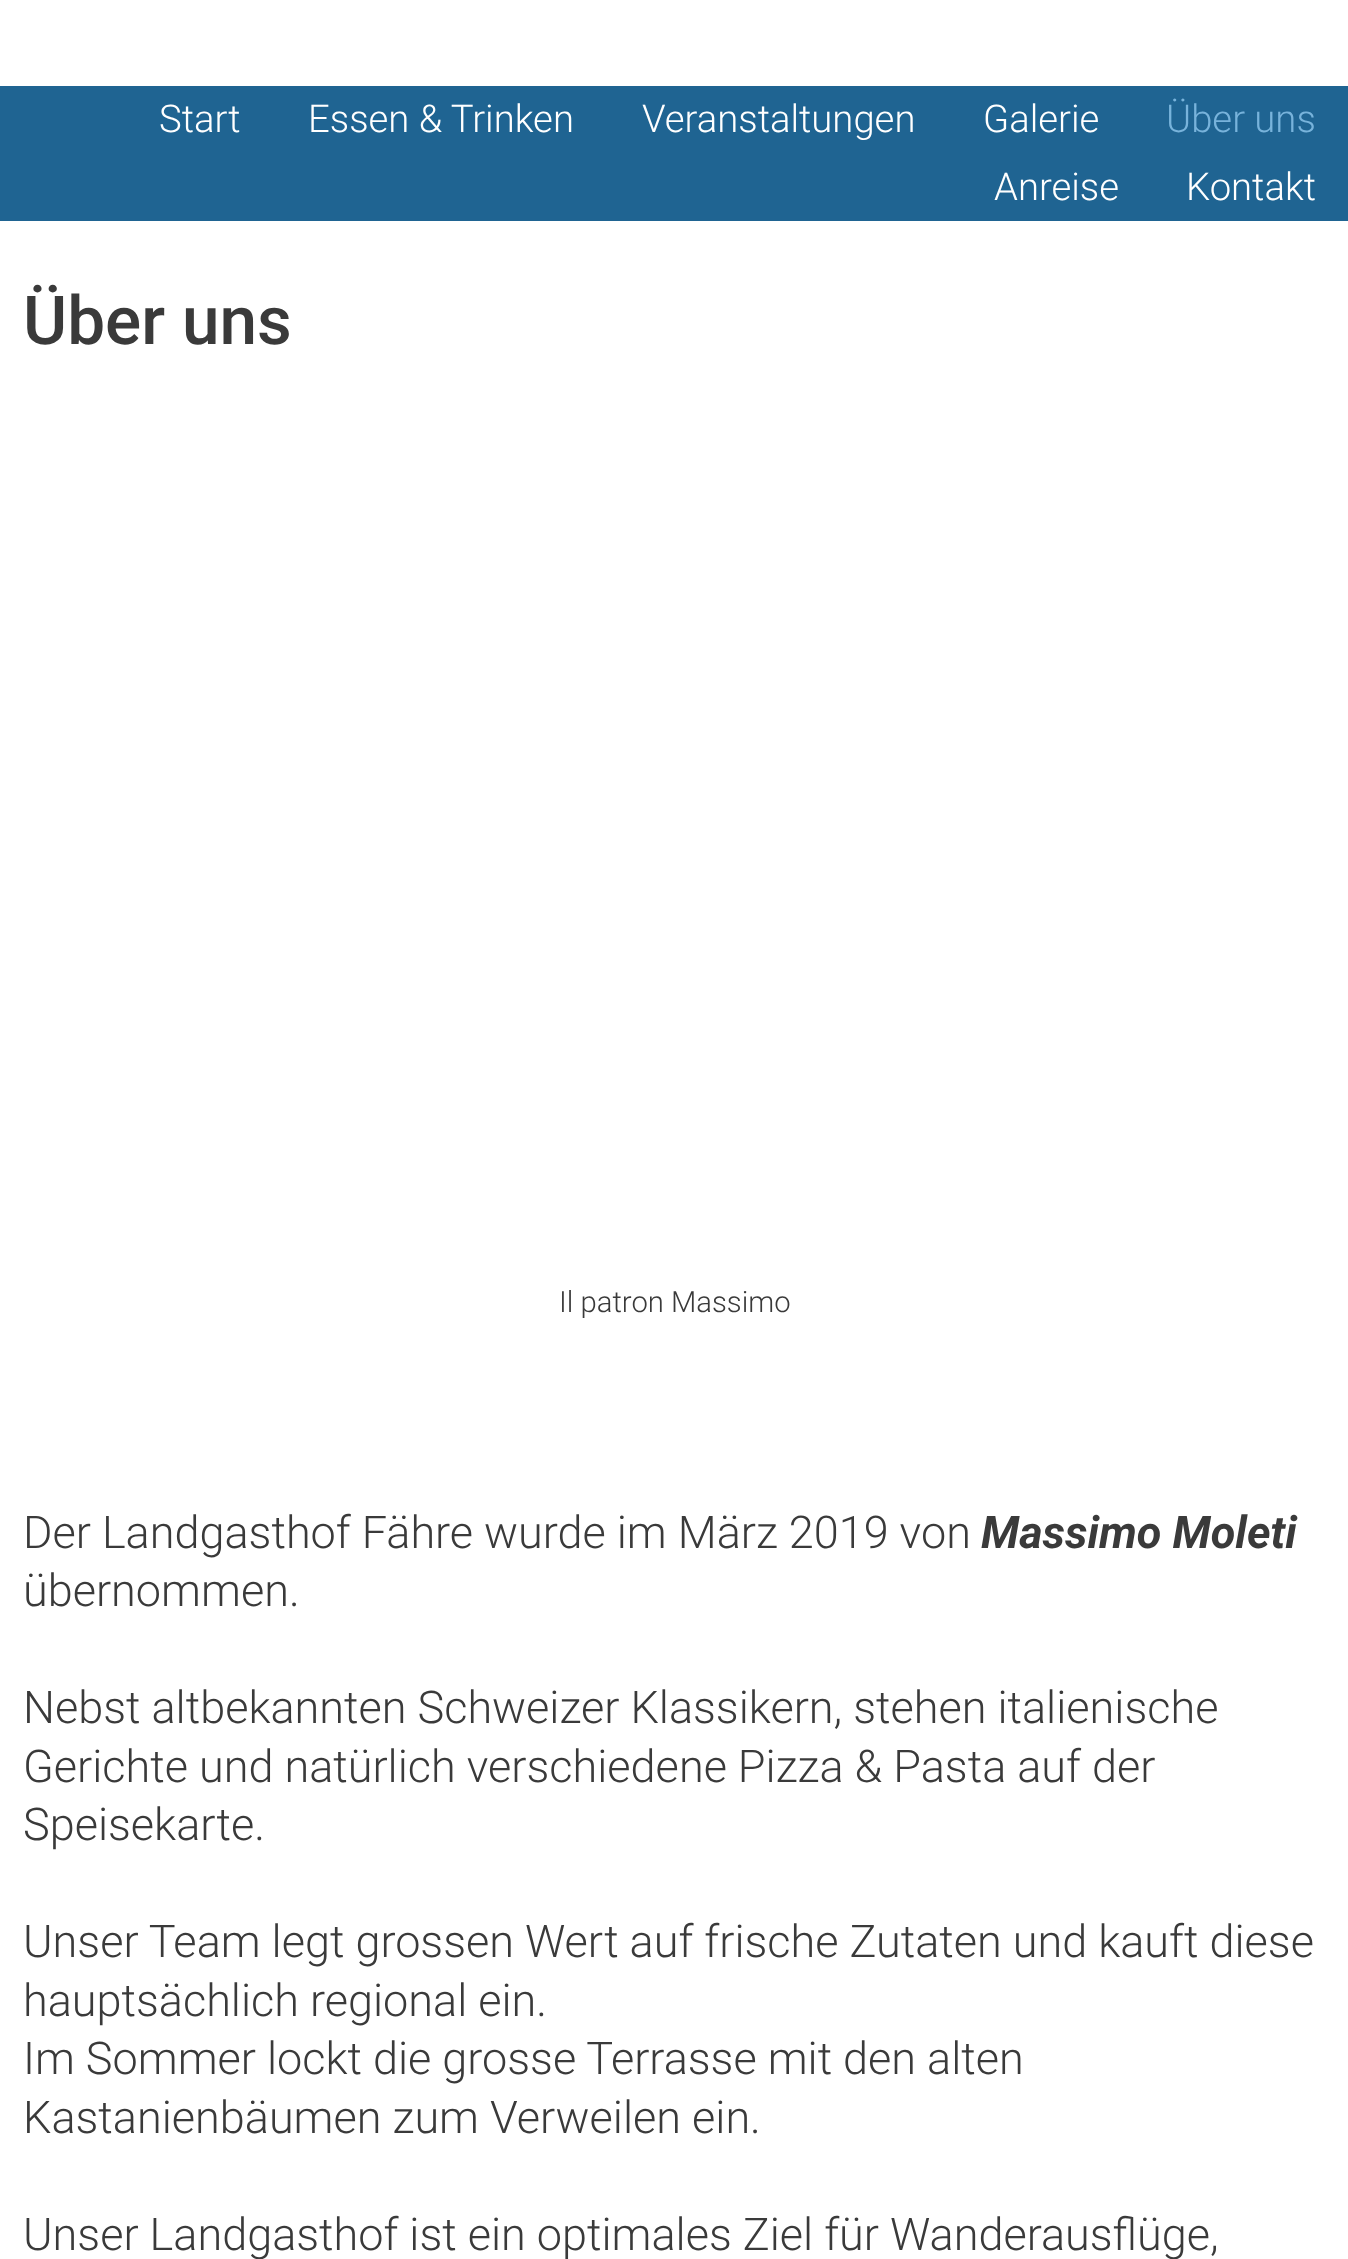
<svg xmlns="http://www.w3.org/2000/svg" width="1348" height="2259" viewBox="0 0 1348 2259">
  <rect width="100%" height="100%" fill="#ffffff"/>
  <rect x="0" y="86" width="1348" height="135" fill="#1f6492"/>
  <text x="159" y="132" font-family="Roboto" font-size="38.25" font-weight="300" fill="#ffffff">Start</text>
  <text x="308" y="132" font-family="Roboto" font-size="38.25" font-weight="300" fill="#ffffff">Essen &amp; Trinken</text>
  <text x="642" y="132" font-family="Roboto" font-size="38.25" font-weight="300" fill="#ffffff">Veranstaltungen</text>
  <text x="983" y="132" font-family="Roboto" font-size="38.25" font-weight="300" fill="#ffffff">Galerie</text>
  <text x="1166" y="132" font-family="Roboto" font-size="38.25" font-weight="300" fill="#78b3db">Über uns</text>
  <text x="994" y="200" font-family="Roboto" font-size="38.25" font-weight="300" fill="#ffffff">Anreise</text>
  <text x="1186" y="200" font-family="Roboto" font-size="38.25" font-weight="300" fill="#ffffff">Kontakt</text>
  <text x="23" y="344" font-family="Roboto" font-size="67.5" font-weight="500" fill="#3a3a3a">Über uns</text>
  <text x="559" y="1312" font-family="Roboto" font-size="29.25" font-weight="300" fill="#3a3a3a">Il patron Massimo</text>
  <text x="23" y="1548" font-family="Roboto" font-size="45" font-weight="300" fill="#3a3a3a">Der Landgasthof Fähre wurde im März 2019 von</text>
  <text x="981" y="1548" font-family="Roboto" font-size="45" font-weight="bold" font-style="italic" fill="#3a3a3a">Massimo Moleti</text>
  <text x="23" y="1606" font-family="Roboto" font-size="45" font-weight="300" fill="#3a3a3a">übernommen.</text>
  <text x="23" y="1723" font-family="Roboto" font-size="45" font-weight="300" fill="#3a3a3a">Nebst altbekannten Schweizer Klassikern, stehen italienische</text>
  <text x="23" y="1782" font-family="Roboto" font-size="45" font-weight="300" fill="#3a3a3a">Gerichte und natürlich verschiedene Pizza &amp; Pasta auf der</text>
  <text x="23" y="1840" font-family="Roboto" font-size="45" font-weight="300" fill="#3a3a3a">Speisekarte.</text>
  <text x="23" y="1957" font-family="Roboto" font-size="45" font-weight="300" fill="#3a3a3a">Unser Team legt grossen Wert auf frische Zutaten und kauft diese</text>
  <text x="23" y="2016" font-family="Roboto" font-size="45" font-weight="300" fill="#3a3a3a">hauptsächlich regional ein.</text>
  <text x="23" y="2074" font-family="Roboto" font-size="45" font-weight="300" fill="#3a3a3a">Im Sommer lockt die grosse Terrasse mit den alten</text>
  <text x="23" y="2133" font-family="Roboto" font-size="45" font-weight="300" fill="#3a3a3a">Kastanienbäumen zum Verweilen ein.</text>
  <text x="23" y="2250" font-family="Roboto" font-size="45" font-weight="300" fill="#3a3a3a">Unser Landgasthof ist ein optimales Ziel für Wanderausflüge,</text>
</svg>
